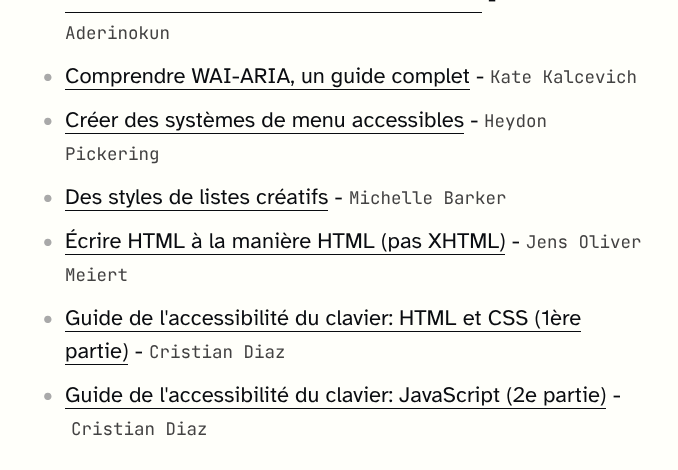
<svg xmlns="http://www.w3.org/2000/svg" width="678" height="470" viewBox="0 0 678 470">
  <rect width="100%" height="100%" fill="#fffffa"/>
  <text x="488" y="6" font-family="Atkinson Hyperlegible" font-size="22" fill="#0a0c10">-</text>
  <rect x="65" y="12" width="417" height="1" fill="#0a0c10"/>
  <text x="65" y="39" font-family="JetBrains Mono" font-size="17.5" fill="#434242">Aderinokun</text>
  <text x="43" y="83" font-family="Atkinson Hyperlegible" font-size="22" fill="#a9a9a9">•</text>
  <text x="65" y="83" font-family="Atkinson Hyperlegible" font-size="22" fill="#0a0c10">Comprendre WAI-ARIA, un guide complet -</text>
  <rect x="65" y="89" width="405" height="1" fill="#0a0c10"/>
  <text x="490" y="83" font-family="JetBrains Mono" font-size="17.5" fill="#434242">Kate Kalcevich</text>
  <text x="43" y="127" font-family="Atkinson Hyperlegible" font-size="22" fill="#a9a9a9">•</text>
  <text x="65" y="127" font-family="Atkinson Hyperlegible" font-size="22" fill="#0a0c10">Créer des systèmes de menu accessibles -</text>
  <rect x="65" y="133" width="399" height="1" fill="#0a0c10"/>
  <text x="484" y="127" font-family="JetBrains Mono" font-size="17.5" fill="#434242">Heydon</text>
  <text x="65" y="160" font-family="JetBrains Mono" font-size="17.5" fill="#434242">Pickering</text>
  <text x="43" y="204" font-family="Atkinson Hyperlegible" font-size="22" fill="#a9a9a9">•</text>
  <text x="65" y="204" font-family="Atkinson Hyperlegible" font-size="22" fill="#0a0c10">Des styles de listes créatifs -</text>
  <rect x="65" y="210" width="263" height="1" fill="#0a0c10"/>
  <text x="349" y="204" font-family="JetBrains Mono" font-size="17.5" fill="#434242">Michelle Barker</text>
  <text x="43" y="248" font-family="Atkinson Hyperlegible" font-size="22" fill="#a9a9a9">•</text>
  <text x="65" y="248" font-family="Atkinson Hyperlegible" font-size="22" fill="#0a0c10">Écrire HTML à la manière HTML (pas XHTML) -</text>
  <rect x="65" y="254" width="440" height="1" fill="#0a0c10"/>
  <text x="526" y="248" font-family="JetBrains Mono" font-size="17.5" fill="#434242">Jens Oliver</text>
  <text x="65" y="281" font-family="JetBrains Mono" font-size="17.5" fill="#434242">Meiert</text>
  <text x="43" y="325" font-family="Atkinson Hyperlegible" font-size="22" fill="#a9a9a9">•</text>
  <text x="65" y="325" font-family="Atkinson Hyperlegible" font-size="22" fill="#0a0c10">Guide de l'accessibilité du clavier: HTML et CSS (1ère</text>
  <rect x="65" y="331" width="516" height="1" fill="#0a0c10"/>
  <text x="65" y="358" font-family="Atkinson Hyperlegible" font-size="22" fill="#0a0c10">partie) -</text>
  <rect x="65" y="364" width="63" height="1" fill="#0a0c10"/>
  <text x="149" y="358" font-family="JetBrains Mono" font-size="17.5" fill="#434242">Cristian Diaz</text>
  <text x="43" y="402" font-family="Atkinson Hyperlegible" font-size="22" fill="#a9a9a9">•</text>
  <text x="65" y="402" font-family="Atkinson Hyperlegible" font-size="22" fill="#0a0c10">Guide de l'accessibilité du clavier: JavaScript (2e partie) -</text>
  <rect x="65" y="408" width="541" height="1" fill="#0a0c10"/>
  <text x="71" y="435" font-family="JetBrains Mono" font-size="17.5" fill="#434242">Cristian Diaz</text>
</svg>
